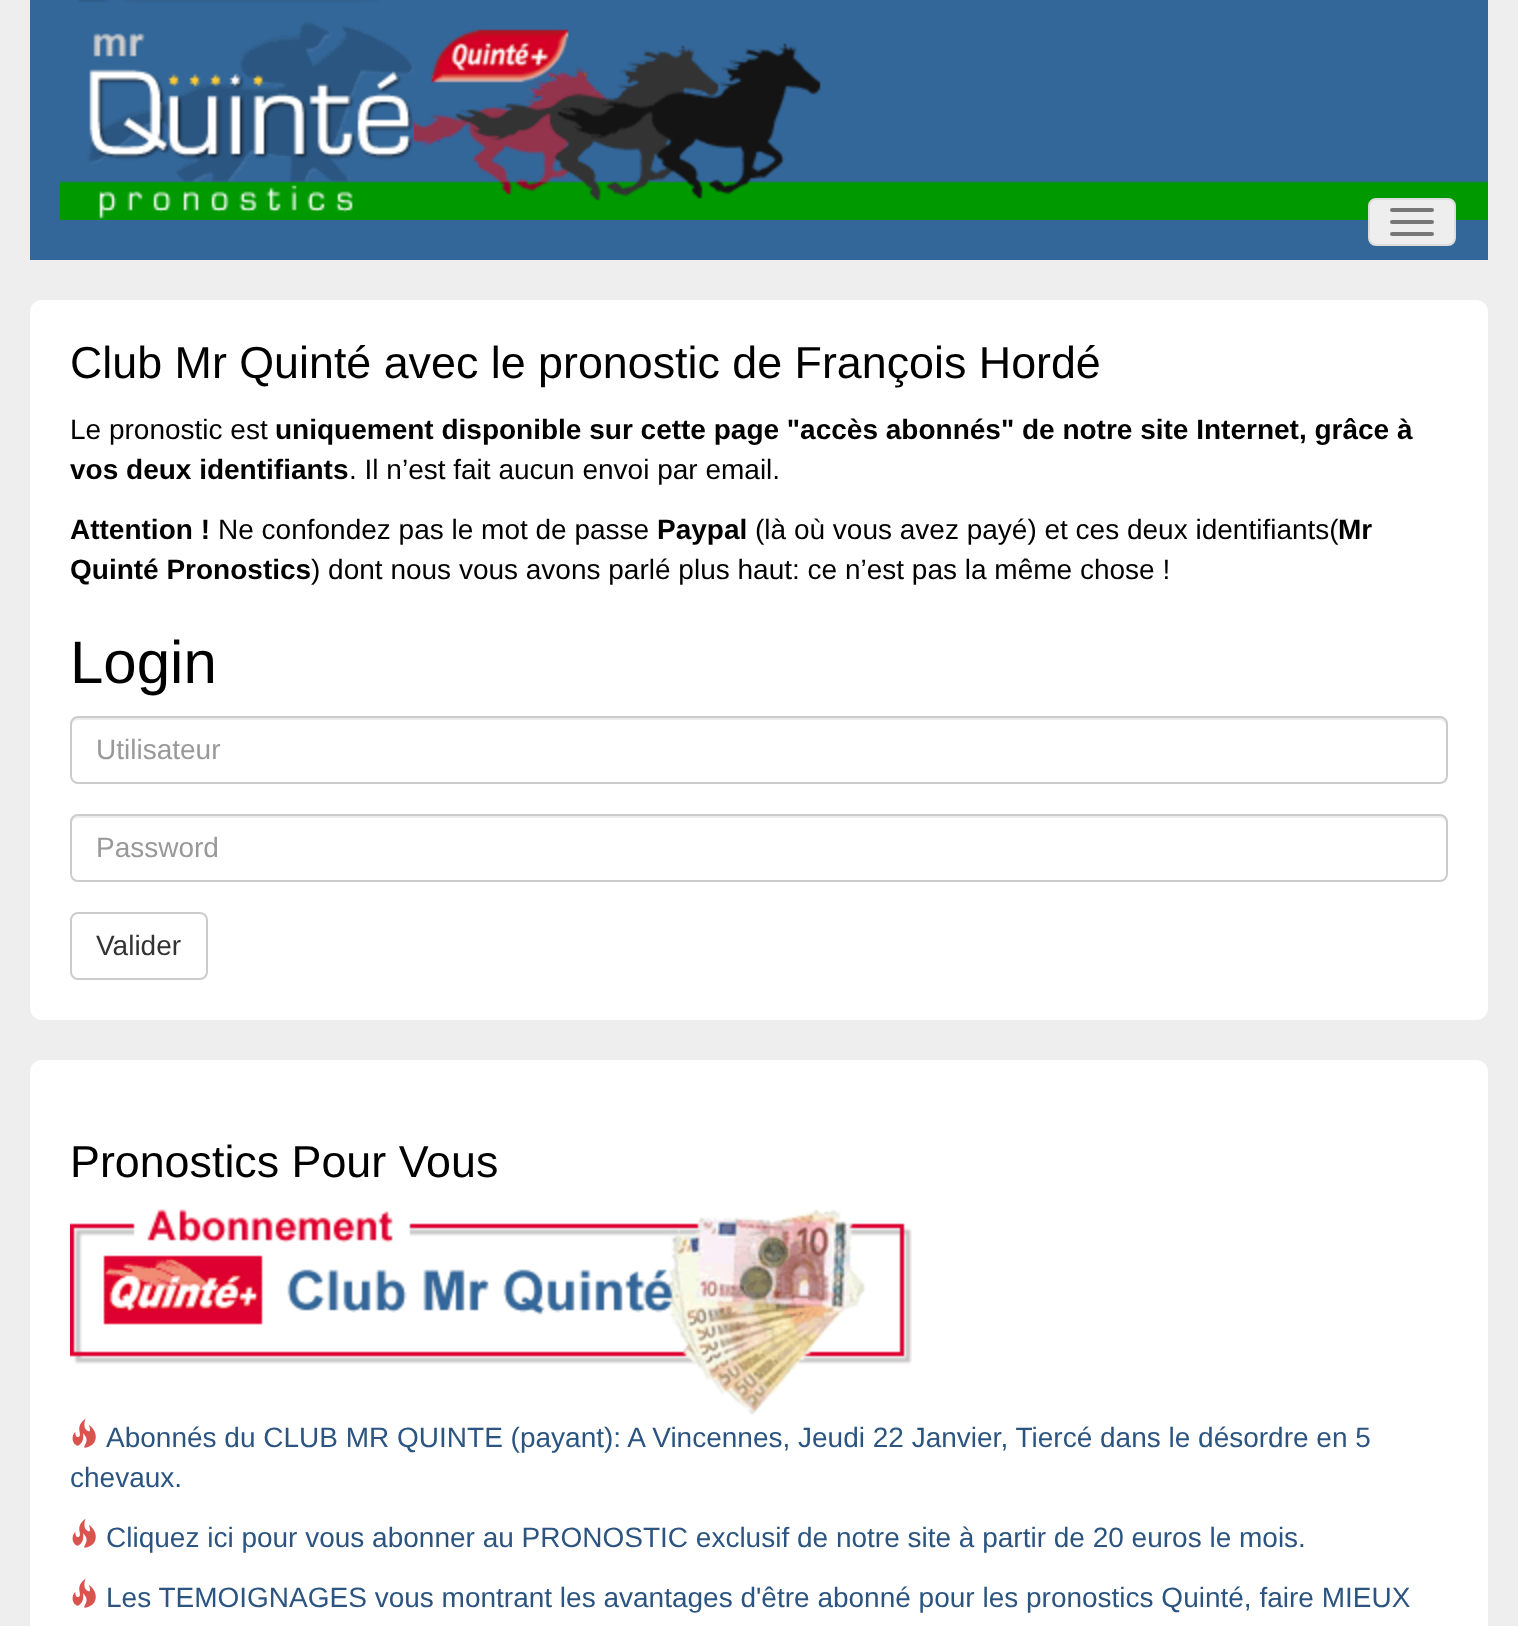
<svg xmlns="http://www.w3.org/2000/svg" width="1518" height="1626" viewBox="0 0 1518 1626">
  <rect width="100%" height="100%" fill="#eeeeee"/>
  <rect x="30" y="0" width="1458" height="260" fill="#336699"/>
  <image x="414" y="29" width="1074" height="191" href="img1.png"/>
  <image x="60" y="0" width="354" height="220" href="img2.png"/>
  <rect x="1369" y="199" width="86" height="46" rx="7" fill="#eeeeee" stroke="#dddddd" stroke-width="2"/>
  <rect x="1390" y="208" width="44" height="4" rx="2" fill="#777777"/>
  <rect x="1390" y="220" width="44" height="4" rx="2" fill="#777777"/>
  <rect x="1390" y="232" width="44" height="4" rx="2" fill="#777777"/>
  <rect x="30" y="300" width="1458" height="720" rx="12" fill="#ffffff"/>
  <text x="70" y="378" font-family="Liberation Sans" font-size="44.8" fill="#000000">Club Mr Quinté avec le pronostic de François Hordé</text>
  <text x="70" y="439" font-family="Liberation Sans" font-size="28" fill="#000000">Le pronostic est</text>
  <text x="275" y="439" font-family="Liberation Sans" font-size="28" font-weight="bold" fill="#000000">uniquement disponible sur cette page "accès abonnés" de notre site Internet, grâce à</text>
  <text x="70" y="479" font-family="Liberation Sans" font-size="28" font-weight="bold" fill="#000000">vos deux identifiants</text>
  <text x="349" y="479" font-family="Liberation Sans" font-size="28" fill="#000000">. Il n’est fait aucun envoi par email.</text>
  <text x="70" y="539" font-family="Liberation Sans" font-size="28" font-weight="bold" fill="#000000">Attention !</text>
  <text x="218" y="539" font-family="Liberation Sans" font-size="28" fill="#000000">Ne confondez pas le mot de passe</text>
  <text x="657" y="539" font-family="Liberation Sans" font-size="28" font-weight="bold" fill="#000000">Paypal</text>
  <text x="755" y="539" font-family="Liberation Sans" font-size="28" fill="#000000">(là où vous avez payé) et ces deux identifiants(</text>
  <text x="1338" y="539" font-family="Liberation Sans" font-size="28" font-weight="bold" fill="#000000">Mr</text>
  <text x="70" y="579" font-family="Liberation Sans" font-size="28" font-weight="bold" fill="#000000">Quinté Pronostics</text>
  <text x="311" y="579" font-family="Liberation Sans" font-size="28" fill="#000000">) dont nous vous avons parlé plus haut: ce n’est pas la même chose !</text>
  <text x="70" y="683" font-family="Liberation Sans" font-size="60" fill="#000000">Login</text>
  <path d="M78 720H1440C1443 720 1446 723 1446 726V724C1446 721 1443 718 1440 718H78C75 718 72 721 72 724V726C72 723 75 720 78 720Z" fill="#ececec"/>
  <rect x="71" y="717" width="1376" height="66" rx="7" fill="none" stroke="#cccccc" stroke-width="2"/>
  <text x="96" y="759" font-family="Liberation Sans" font-size="28" fill="#999999">Utilisateur</text>
  <path d="M78 818H1440C1443 818 1446 821 1446 824V822C1446 819 1443 816 1440 816H78C75 816 72 819 72 822V824C72 821 75 818 78 818Z" fill="#ececec"/>
  <rect x="71" y="815" width="1376" height="66" rx="7" fill="none" stroke="#cccccc" stroke-width="2"/>
  <text x="96" y="857" font-family="Liberation Sans" font-size="28" fill="#999999">Password</text>
  <rect x="71" y="913" width="136" height="66" rx="7" fill="none" stroke="#cccccc" stroke-width="2"/>
  <text x="96" y="955" font-family="Liberation Sans" font-size="28" fill="#333333">Valider</text>
  <rect x="30" y="1060" width="1458" height="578" rx="12" fill="#ffffff"/>
  <text x="70" y="1177" font-family="Liberation Sans" font-size="44.8" fill="#000000">Pronostics Pour Vous</text>
  <image x="70" y="1209" width="842" height="206" href="img3.png"/>
  <image x="72" y="1418" width="24" height="30" href="img4.png"/>
  <text x="106" y="1447" font-family="Liberation Sans" font-size="28" fill="#2b5580">Abonnés du CLUB MR QUINTE (payant): A Vincennes, Jeudi 22 Janvier, Tiercé dans le désordre en 5</text>
  <text x="70" y="1487" font-family="Liberation Sans" font-size="28" fill="#2b5580">chevaux.</text>
  <image x="72" y="1518" width="24" height="30" href="img4.png"/>
  <text x="106" y="1547" font-family="Liberation Sans" font-size="28" fill="#2b5580">Cliquez ici pour vous abonner au PRONOSTIC exclusif de notre site à partir de 20 euros le mois.</text>
  <image x="72" y="1578" width="24" height="30" href="img4.png"/>
  <text x="106" y="1607" font-family="Liberation Sans" font-size="28" fill="#2b5580">Les TEMOIGNAGES vous montrant les avantages d'être abonné pour les pronostics Quinté, faire MIEUX</text>
</svg>
